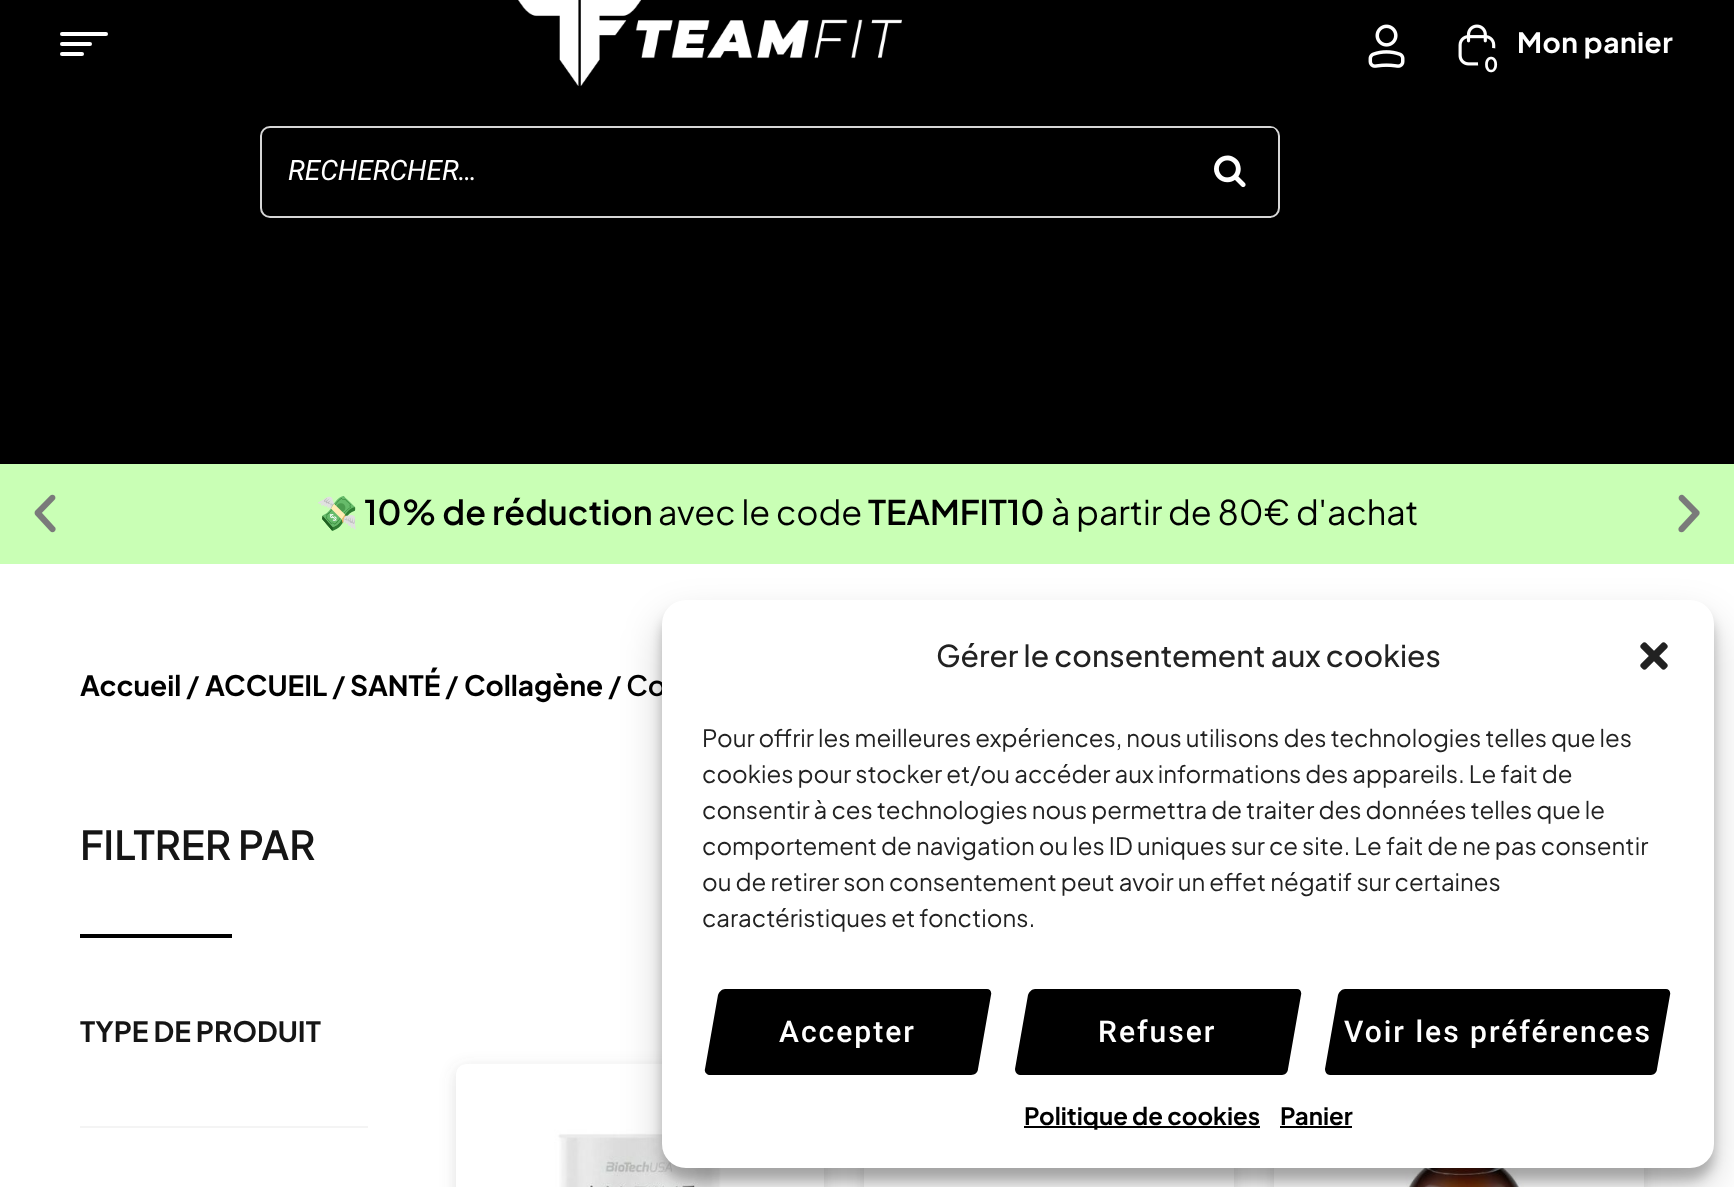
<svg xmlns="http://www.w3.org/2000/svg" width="1734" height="1187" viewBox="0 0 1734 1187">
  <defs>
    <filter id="blur1" x="-50%" y="-200%" width="200%" height="500%"><feGaussianBlur stdDeviation="8"/></filter>
    <filter id="blur2" x="-50%" y="-200%" width="200%" height="500%"><feGaussianBlur stdDeviation="6"/></filter>
    <filter id="blur3" x="-50%" y="-200%" width="200%" height="500%"><feGaussianBlur stdDeviation="20"/></filter>
  </defs>
  <rect width="100%" height="100%" fill="#ffffff"/>
  <rect x="0" y="0" width="1734" height="464" fill="#000000"/>
  <rect x="60" y="32" width="48" height="4" rx="2" fill="#ffffff"/>
  <rect x="60" y="42" width="32" height="4" rx="2" fill="#ffffff"/>
  <rect x="60" y="52" width="24" height="4" rx="2" fill="#ffffff"/>
  <image x="518" y="0" width="384" height="86" href="img1.png"/>
  <image x="1368" y="24" width="37" height="44" href="img2.png"/>
  <image x="1458" y="24" width="38" height="42" href="img3.png"/>
  <text x="1517" y="53" font-family="Plus Jakarta Sans" font-size="28" font-weight="bold" letter-spacing="0.5" fill="#ffffff">Mon panier</text>
  <rect x="1478" y="48" width="28" height="30" rx="14" fill="#000000"/>
  <text x="1484" y="72" font-family="Plus Jakarta Sans" font-size="20" font-weight="bold" fill="#ffffff">0</text>
  <rect x="261" y="127" width="1018" height="90" rx="9" fill="none" stroke="#d6d6d6" stroke-width="2"/>
  <text x="288" y="180" font-family="Roboto" font-size="28" font-style="italic" fill="#ffffff">RECHERCHER…</text>
  <path d="M1211 128H1272C1275 128 1277 131 1276 134L1264 206C1263 210 1260 212 1257 212H1196C1193 212 1190 210 1191 206L1204 134C1204 131 1207 128 1211 128Z" fill="#000000"/>
  <image x="1214" y="155" width="32" height="33" href="img4.png"/>
  <rect x="0" y="464" width="1734" height="100" fill="#c9ffb5"/>
  <image x="34" y="494" width="22" height="39" href="img5.png"/>
  <text x="316" y="525" font-family="Noto Color Emoji" font-size="34" fill="#000000">💸</text>
  <text x="364" y="525" font-family="Plus Jakarta Sans" font-size="34" font-weight="600" fill="#000000">10% de réduction</text>
  <text x="658" y="525" font-family="Plus Jakarta Sans" font-size="34" fill="#000000">avec le code</text>
  <text x="868" y="525" font-family="Plus Jakarta Sans" font-size="34" font-weight="600" fill="#000000">TEAMFIT10</text>
  <text x="1051" y="525" font-family="Plus Jakarta Sans" font-size="34" fill="#000000">à partir de 80€ d'achat</text>
  <image x="1678" y="494" width="22" height="39" href="img6.png"/>
  <text x="80" y="696" font-family="Plus Jakarta Sans" font-size="28" font-weight="bold" fill="#000000">Accueil</text>
  <text x="186" y="696" font-family="Plus Jakarta Sans" font-size="28" font-weight="600" fill="#000000">/</text>
  <text x="205" y="696" font-family="Plus Jakarta Sans" font-size="28" font-weight="bold" fill="#000000">ACCUEIL</text>
  <text x="332" y="696" font-family="Plus Jakarta Sans" font-size="28" font-weight="600" fill="#000000">/</text>
  <text x="350" y="696" font-family="Plus Jakarta Sans" font-size="28" font-weight="bold" fill="#000000">SANTÉ</text>
  <text x="445" y="696" font-family="Plus Jakarta Sans" font-size="28" font-weight="600" fill="#000000">/</text>
  <text x="464" y="696" font-family="Plus Jakarta Sans" font-size="28" font-weight="bold" fill="#000000">Collagène</text>
  <text x="608" y="696" font-family="Plus Jakarta Sans" font-size="28" font-weight="600" fill="#000000">/ Co</text>
  <text x="80" y="860" font-family="Plus Jakarta Sans" font-size="40" font-weight="600" fill="#151515">FILTRER PAR</text>
  <rect x="80" y="934" width="152" height="4" fill="#000000"/>
  <text x="80" y="1042" font-family="Plus Jakarta Sans" font-size="28" font-weight="bold" fill="#151515">TYPE DE PRODUIT</text>
  <rect x="80" y="1126" width="288" height="2" fill="#f4f4f4"/>
  <rect x="456" y="1068" width="368" height="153" rx="10" fill="#636363" fill-opacity="0.2" filter="url(#blur1)"/>
  <rect x="456" y="1064" width="368" height="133" rx="10" fill="#f4f4f4"/>
  <image x="456" y="1064" width="368" height="123" href="img7.png"/>
  <rect x="864" y="1068" width="370" height="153" rx="10" fill="#636363" fill-opacity="0.2" filter="url(#blur1)"/>
  <image x="864" y="1168" width="370" height="19" href="img8.png"/>
  <rect x="1274" y="1068" width="370" height="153" rx="10" fill="#636363" fill-opacity="0.2" filter="url(#blur1)"/>
  <image x="1274" y="1168" width="370" height="19" href="img9.png"/>
  <rect x="662" y="612" width="1052" height="568" rx="24" fill="#000000" fill-opacity="0.23" filter="url(#blur2)"/>
  <rect x="662" y="620" width="1052" height="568" rx="24" fill="#000000" fill-opacity="0.19" filter="url(#blur3)"/>
  <rect x="662" y="600" width="1052" height="568" rx="24" fill="#ffffff"/>
  <text x="936" y="667" font-family="Plus Jakarta Sans" font-size="30" font-weight="500" fill="#222222">Gérer le consentement aux cookies</text>
  <image x="1640" y="642" width="28" height="28" href="img10.png"/>
  <text x="702" y="747" font-family="Plus Jakarta Sans" font-size="24" fill="#222222">Pour offrir les meilleures expériences, nous utilisons des technologies telles que les</text>
  <text x="702" y="783" font-family="Plus Jakarta Sans" font-size="24" fill="#222222">cookies pour stocker et/ou accéder aux informations des appareils. Le fait de</text>
  <text x="702" y="819" font-family="Plus Jakarta Sans" font-size="24" fill="#222222">consentir à ces technologies nous permettra de traiter des données telles que le</text>
  <text x="702" y="855" font-family="Plus Jakarta Sans" font-size="24" fill="#222222">comportement de navigation ou les ID uniques sur ce site. Le fait de ne pas consentir</text>
  <text x="702" y="891" font-family="Plus Jakarta Sans" font-size="24" fill="#222222">ou de retirer son consentement peut avoir un effet négatif sur certaines</text>
  <text x="702" y="927" font-family="Plus Jakarta Sans" font-size="24" fill="#222222">caractéristiques et fonctions.</text>
  <path d="M725 989H987C990 989 992 992 991 995L978 1069C978 1072 975 1075 971 1075H710C707 1075 704 1072 705 1069L718 995C719 992 722 989 725 989Z" fill="#000000"/>
  <text x="779" y="1042" font-family="Roboto" font-size="30" font-weight="500" letter-spacing="2" fill="#ffffff">Accepter</text>
  <path d="M1035 989H1297C1300 989 1302 992 1301 995L1288 1069C1288 1072 1285 1075 1282 1075H1020C1017 1075 1015 1072 1015 1069L1028 995C1029 992 1032 989 1035 989Z" fill="#000000"/>
  <text x="1098" y="1042" font-family="Roboto" font-size="30" font-weight="500" letter-spacing="2" fill="#ffffff">Refuser</text>
  <path d="M1345 989H1666C1669 989 1671 992 1670 995L1657 1069C1657 1072 1654 1075 1651 1075H1330C1327 1075 1325 1072 1325 1069L1338 995C1339 992 1342 989 1345 989Z" fill="#000000"/>
  <text x="1344" y="1042" font-family="Roboto" font-size="30" font-weight="500" letter-spacing="2" fill="#ffffff">Voir les préférences</text>
  <rect x="1024" y="1126" width="236" height="2" fill="#000000"/>
  <text x="1024" y="1125" font-family="Plus Jakarta Sans" font-size="24" font-weight="bold" fill="#000000">Politique de cookies</text>
  <text x="1280" y="1125" font-family="Plus Jakarta Sans" font-size="24" font-weight="bold" fill="#000000">Panier</text>
  <rect x="1280" y="1126" width="72" height="2" fill="#000000"/>
</svg>
